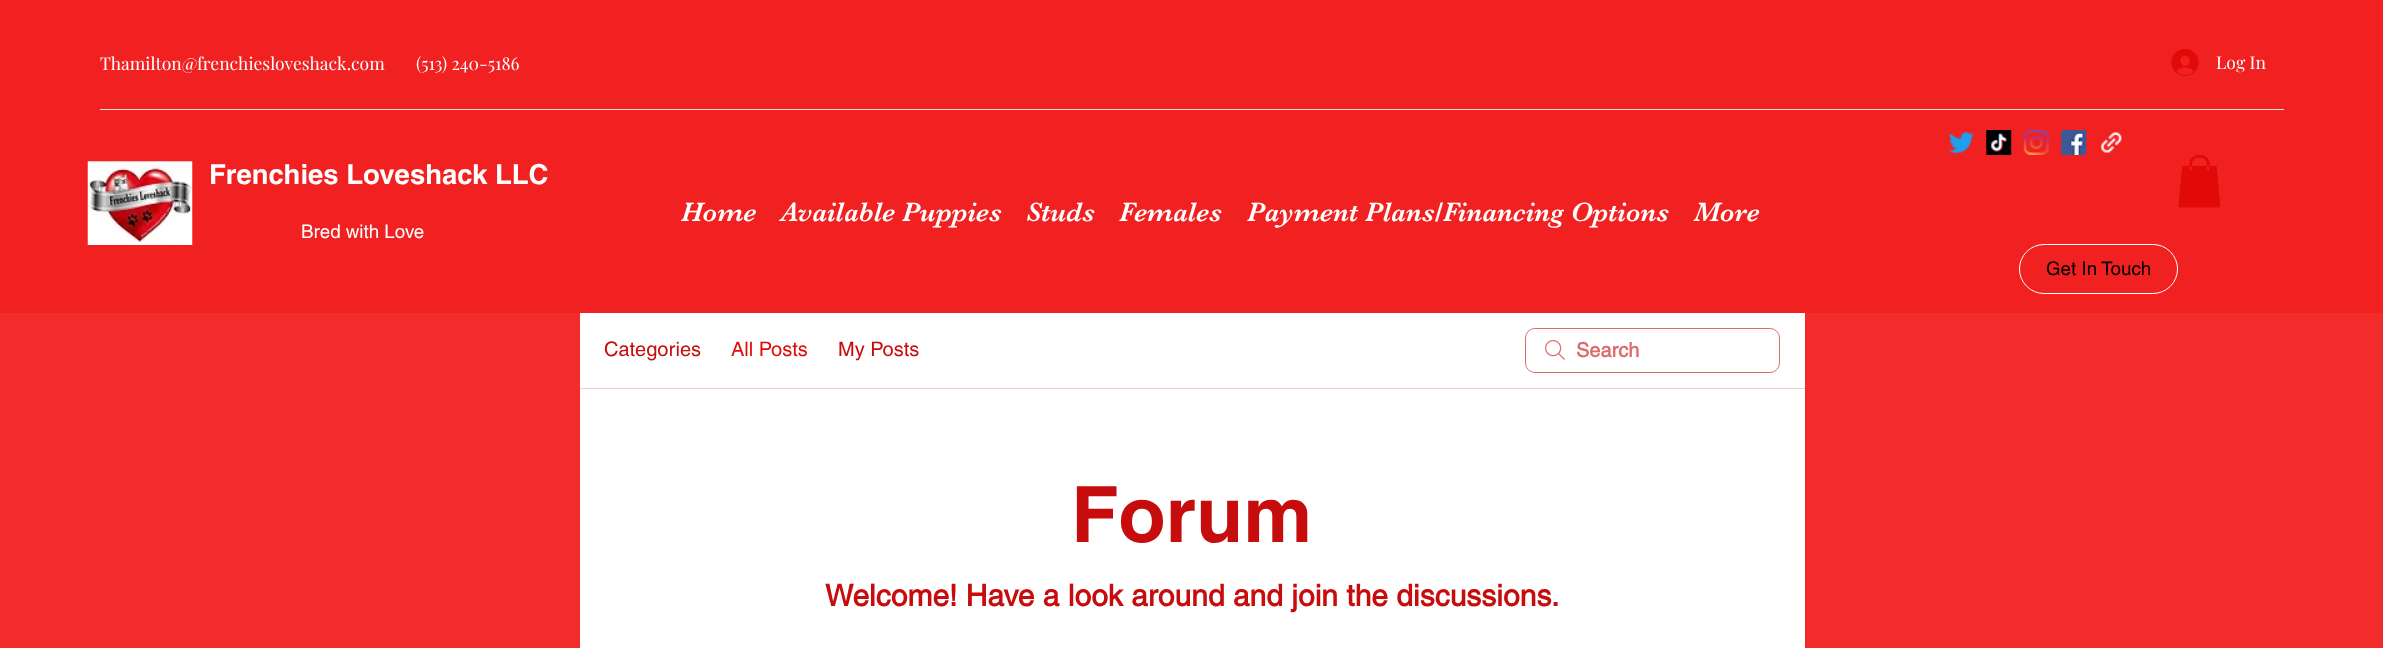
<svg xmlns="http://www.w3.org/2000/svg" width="2383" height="648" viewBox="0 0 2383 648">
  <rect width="100%" height="100%" fill="#f22b2b"/>
  <rect x="0" y="0" width="2383" height="313" fill="#f22121"/>
  <text x="100" y="70" font-family="Playfair Display" font-size="17.5" fill="#ffffff">Thamilton@frenchiesloveshack.com</text>
  <text x="416" y="70" font-family="Playfair Display" font-size="17.5" fill="#ffffff">(513) 240-5186</text>
  <image x="2171" y="49" width="28" height="27" href="img1.png"/>
  <text x="2216" y="69" font-family="Playfair Display" font-size="17.5" fill="#ffffff">Log In</text>
  <rect x="100" y="109" width="2184" height="1" fill="#fddede"/>
  <image x="87" y="161" width="106" height="84" href="img2.png"/>
  <text x="209" y="184" font-family="helvetica" font-size="27.5" font-weight="bold" fill="#ffffff">Frenchies Loveshack LLC</text>
  <text x="301" y="238" font-family="helvetica" font-size="18.75" fill="#ffffff">Bred with Love</text>
  <image x="1948" y="131" width="26" height="23" href="img3.png"/>
  <image x="1986" y="130" width="26" height="25" href="img4.png"/>
  <image x="2023" y="130" width="26" height="25" href="img5.png"/>
  <image x="2061" y="130" width="26" height="25" href="img6.png"/>
  <image x="2100" y="131" width="22" height="23" href="img7.png"/>
  <image x="2178" y="155" width="43" height="53" href="img8.png"/>
  <image x="2178" y="155" width="42" height="53" href="img9.png"/>
  <rect x="2019.5" y="244.5" width="158" height="49" rx="24.5" fill="none" stroke="#ffffff"/>
  <text x="2046" y="275" font-family="helvetica" font-size="18.75" fill="#000000">Get In Touch</text>
  <text x="681" y="221" font-family="'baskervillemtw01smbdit'" font-size="27.5" fill="#ffffff">Home</text>
  <text x="781" y="221" font-family="'baskervillemtw01smbdit'" font-size="27.5" fill="#ffffff">Available Puppies</text>
  <text x="1026" y="221" font-family="'baskervillemtw01smbdit'" font-size="27.5" fill="#ffffff">Studs</text>
  <text x="1119" y="221" font-family="'baskervillemtw01smbdit'" font-size="27.5" fill="#ffffff">Females</text>
  <text x="1247" y="221" font-family="'baskervillemtw01smbdit'" font-size="27.5" fill="#ffffff">Payment Plans/Financing Options</text>
  <text x="1694" y="221" font-family="'baskervillemtw01smbdit'" font-size="27.5" fill="#ffffff">More</text>
  <rect x="580" y="313" width="1225" height="335" fill="#ffffff"/>
  <rect x="580" y="388" width="1225" height="1" fill="#f4cece"/>
  <text x="604" y="356" font-family="helvetica" font-size="20" fill="#c60c0c">Categories</text>
  <text x="731" y="356" font-family="helvetica" font-size="20" fill="#e10a09">All Posts</text>
  <text x="838" y="356" font-family="helvetica" font-size="20" fill="#c60c0c">My Posts</text>
  <image x="1545" y="340" width="20" height="20" href="img10.png"/>
  <rect x="1525.5" y="328.5" width="254" height="44" rx="9.5" fill="none" stroke="#dd6d6d"/>
  <text x="1576" y="357" font-family="'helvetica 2'" font-size="20" font-weight="bold" fill="#dd6d6d">Search</text>
  <text x="1071" y="542" font-family="helvetica" font-size="77.5" font-weight="bold" fill="#c60c0c">Forum</text>
  <text x="825" y="606" font-family="'helvetica 2'" font-size="30" font-weight="bold" fill="#c60c0c">Welcome! Have a look around and join the discussions.</text>
</svg>
